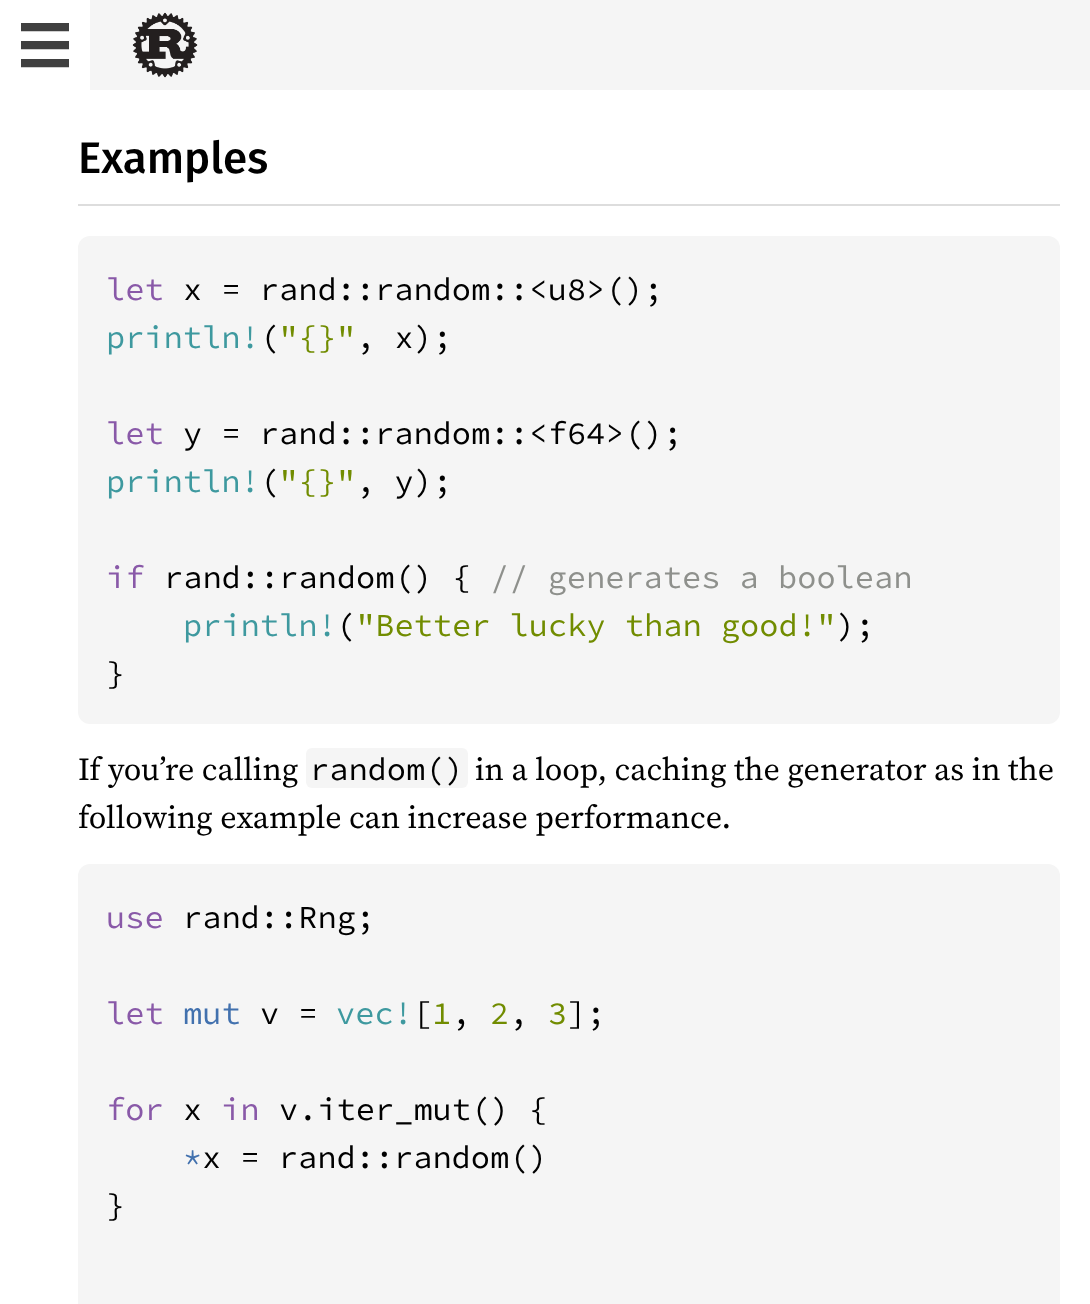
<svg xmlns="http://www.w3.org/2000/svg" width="1090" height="1304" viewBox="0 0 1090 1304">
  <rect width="100%" height="100%" fill="#ffffff"/>
  <rect x="90" y="0" width="1000" height="90" fill="#f5f5f5"/>
  <image x="21" y="23" width="48" height="45" href="img1.png"/>
  <image x="132" y="12" width="66" height="66" href="img2.png"/>
  <rect x="78" y="204" width="982" height="2" fill="#dddddd"/>
  <text x="78" y="173" font-family="Fira Sans" font-size="44" font-weight="500" fill="#000000">Examples</text>
  <rect x="78" y="236" width="982" height="488" rx="12" fill="#f5f5f5"/>
  <text x="106" y="300" font-family="Source Code Pro" font-size="32" fill="#8959a8">let</text>
  <text x="183" y="300" font-family="Source Code Pro" font-size="32" fill="#000000">x = rand::random::&lt;u8&gt;();</text>
  <text x="106" y="348" font-family="Source Code Pro" font-size="32" fill="#3e999f">println!</text>
  <text x="260" y="348" font-family="Source Code Pro" font-size="32" fill="#000000">(</text>
  <text x="279" y="348" font-family="Source Code Pro" font-size="32" fill="#718c00">"{}"</text>
  <text x="356" y="348" font-family="Source Code Pro" font-size="32" fill="#000000">, x);</text>
  <text x="106" y="444" font-family="Source Code Pro" font-size="32" fill="#8959a8">let</text>
  <text x="183" y="444" font-family="Source Code Pro" font-size="32" fill="#000000">y = rand::random::&lt;f64&gt;();</text>
  <text x="106" y="492" font-family="Source Code Pro" font-size="32" fill="#3e999f">println!</text>
  <text x="260" y="492" font-family="Source Code Pro" font-size="32" fill="#000000">(</text>
  <text x="279" y="492" font-family="Source Code Pro" font-size="32" fill="#718c00">"{}"</text>
  <text x="356" y="492" font-family="Source Code Pro" font-size="32" fill="#000000">, y);</text>
  <text x="106" y="588" font-family="Source Code Pro" font-size="32" fill="#8959a8">if</text>
  <text x="164" y="588" font-family="Source Code Pro" font-size="32" fill="#000000">rand::random() {</text>
  <text x="490" y="588" font-family="Source Code Pro" font-size="32" fill="#8e908c">// generates a boolean</text>
  <text x="183" y="636" font-family="Source Code Pro" font-size="32" fill="#3e999f">println!</text>
  <text x="336" y="636" font-family="Source Code Pro" font-size="32" fill="#000000">(</text>
  <text x="356" y="636" font-family="Source Code Pro" font-size="32" fill="#718c00">"Better lucky than good!"</text>
  <text x="836" y="636" font-family="Source Code Pro" font-size="32" fill="#000000">);</text>
  <text x="106" y="684" font-family="Source Code Pro" font-size="32" fill="#000000">}</text>
  <text x="78" y="780" font-family="'Source Serif 4'" font-size="32" fill="#000000">If you’re calling</text>
  <rect x="306" y="748" width="162" height="40" rx="6" fill="#f5f5f5"/>
  <text x="310" y="780" font-family="Source Code Pro" font-size="32" fill="#000000">random()</text>
  <text x="475" y="780" font-family="'Source Serif 4'" font-size="32" fill="#000000">in a loop, caching the generator as in the</text>
  <text x="78" y="828" font-family="'Source Serif 4'" font-size="32" fill="#000000">following example can increase performance.</text>
  <rect x="78" y="864" width="982" height="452" rx="12" fill="#f5f5f5"/>
  <text x="106" y="928" font-family="Source Code Pro" font-size="32" fill="#8959a8">use</text>
  <text x="183" y="928" font-family="Source Code Pro" font-size="32" fill="#000000">rand::Rng;</text>
  <text x="106" y="1024" font-family="Source Code Pro" font-size="32" fill="#8959a8">let</text>
  <text x="183" y="1024" font-family="Source Code Pro" font-size="32" fill="#4271ae">mut</text>
  <text x="336" y="1024" font-family="Source Code Pro" font-size="32" fill="#3e999f">vec!</text>
  <text x="413" y="1024" font-family="Source Code Pro" font-size="32" fill="#000000">[ ,</text>
  <text x="567" y="1024" font-family="Source Code Pro" font-size="32" fill="#000000">];</text>
  <text x="260" y="1024" font-family="Source Code Pro" font-size="32" fill="#000000">v =</text>
  <text x="432" y="1024" font-family="Source Code Pro" font-size="32" fill="#718c00">1</text>
  <text x="490" y="1024" font-family="Source Code Pro" font-size="32" fill="#718c00">2</text>
  <text x="509" y="1024" font-family="Source Code Pro" font-size="32" fill="#000000">,</text>
  <text x="548" y="1024" font-family="Source Code Pro" font-size="32" fill="#718c00">3</text>
  <text x="106" y="1120" font-family="Source Code Pro" font-size="32" fill="#8959a8">for</text>
  <text x="183" y="1120" font-family="Source Code Pro" font-size="32" fill="#000000">x</text>
  <text x="221" y="1120" font-family="Source Code Pro" font-size="32" fill="#8959a8">in</text>
  <text x="279" y="1120" font-family="Source Code Pro" font-size="32" fill="#000000">v.iter_mut() {</text>
  <text x="183" y="1168" font-family="Source Code Pro" font-size="32" fill="#4271ae">*</text>
  <text x="202" y="1168" font-family="Source Code Pro" font-size="32" fill="#000000">x = rand::random()</text>
  <text x="106" y="1216" font-family="Source Code Pro" font-size="32" fill="#000000">}</text>
</svg>
